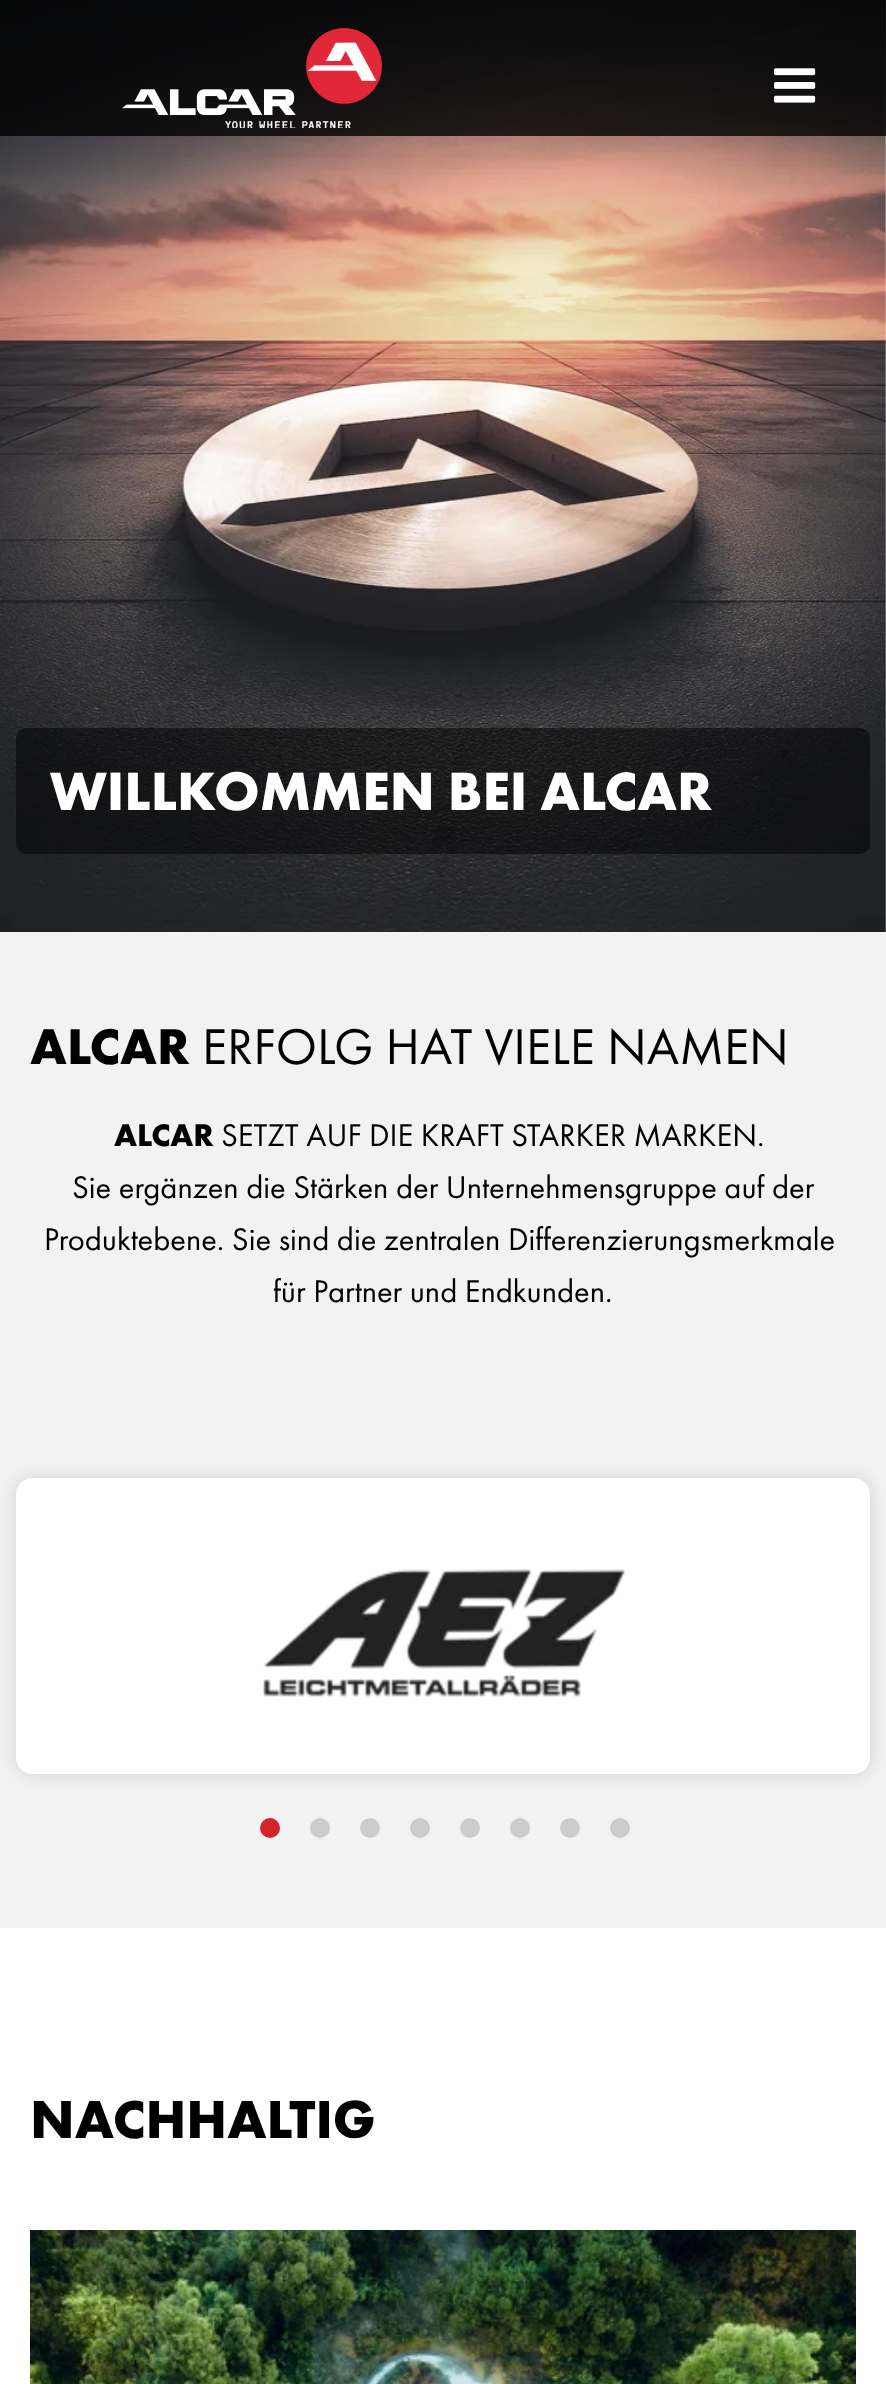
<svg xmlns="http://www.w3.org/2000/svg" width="886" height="2384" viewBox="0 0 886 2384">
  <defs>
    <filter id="blur1" x="-50%" y="-200%" width="200%" height="500%"><feGaussianBlur stdDeviation="8"/></filter>
  </defs>
  <rect width="100%" height="100%" fill="#ffffff"/>
  <image x="0" y="0" width="886" height="932" href="img3.png"/>
  <rect x="0" y="0" width="886" height="136" fill="#000000" fill-opacity="0.8"/>
  <image x="122" y="28" width="260" height="100" href="img1.png"/>
  <image x="774" y="68" width="42" height="35" href="img2.png"/>
  <rect x="16" y="728" width="854" height="126" rx="10" fill="#000000" fill-opacity="0.5"/>
  <text x="50" y="810" font-family="Futura" font-size="56" font-weight="bold" fill="#ffffff">WILLKOMMEN BEI ALCAR</text>
  <rect x="0" y="932" width="886" height="996" fill="#f2f2f2"/>
  <text x="30" y="1064" font-family="Futura" font-size="52" font-weight="bold" fill="#000000">ALCAR</text>
  <text x="202" y="1064" font-family="Futura PT" font-size="52" fill="#000000">ERFOLG HAT VIELE NAMEN</text>
  <text x="114" y="1146" font-family="Futura" font-size="32.5" font-weight="bold" fill="#000000">ALCAR</text>
  <text x="221" y="1146" font-family="Futura PT" font-size="32.5" fill="#000000">SETZT AUF DIE KRAFT STARKER MARKEN.</text>
  <text x="72" y="1198" font-family="Futura PT" font-size="32.5" fill="#000000">Sie ergänzen die Stärken der Unternehmensgruppe auf der</text>
  <text x="44" y="1250" font-family="Futura PT" font-size="32.5" fill="#000000">Produktebene. Sie sind die zentralen Differenzierungsmerkmale</text>
  <text x="273" y="1302" font-family="Futura PT" font-size="32.5" fill="#000000">für Partner und Endkunden.</text>
  <rect x="16" y="1478" width="854" height="296" rx="16" fill="#000000" fill-opacity="0.15" filter="url(#blur1)"/>
  <rect x="16" y="1478" width="854" height="296" rx="16" fill="#ffffff"/>
  <image x="263" y="1569" width="362" height="128" href="img4.png"/>
  <circle cx="270" cy="1828" r="10" fill="#d3242e"/>
  <circle cx="320" cy="1828" r="10" fill="#cccccc"/>
  <circle cx="370" cy="1828" r="10" fill="#cccccc"/>
  <circle cx="420" cy="1828" r="10" fill="#cccccc"/>
  <circle cx="470" cy="1828" r="10" fill="#cccccc"/>
  <circle cx="520" cy="1828" r="10" fill="#cccccc"/>
  <circle cx="570" cy="1828" r="10" fill="#cccccc"/>
  <circle cx="620" cy="1828" r="10" fill="#cccccc"/>
  <text x="30" y="2138" font-family="Futura" font-size="55.5" font-weight="bold" fill="#000000">NACHHALTIG</text>
  <image x="30" y="2230" width="826" height="154" href="img5.png"/>
</svg>
